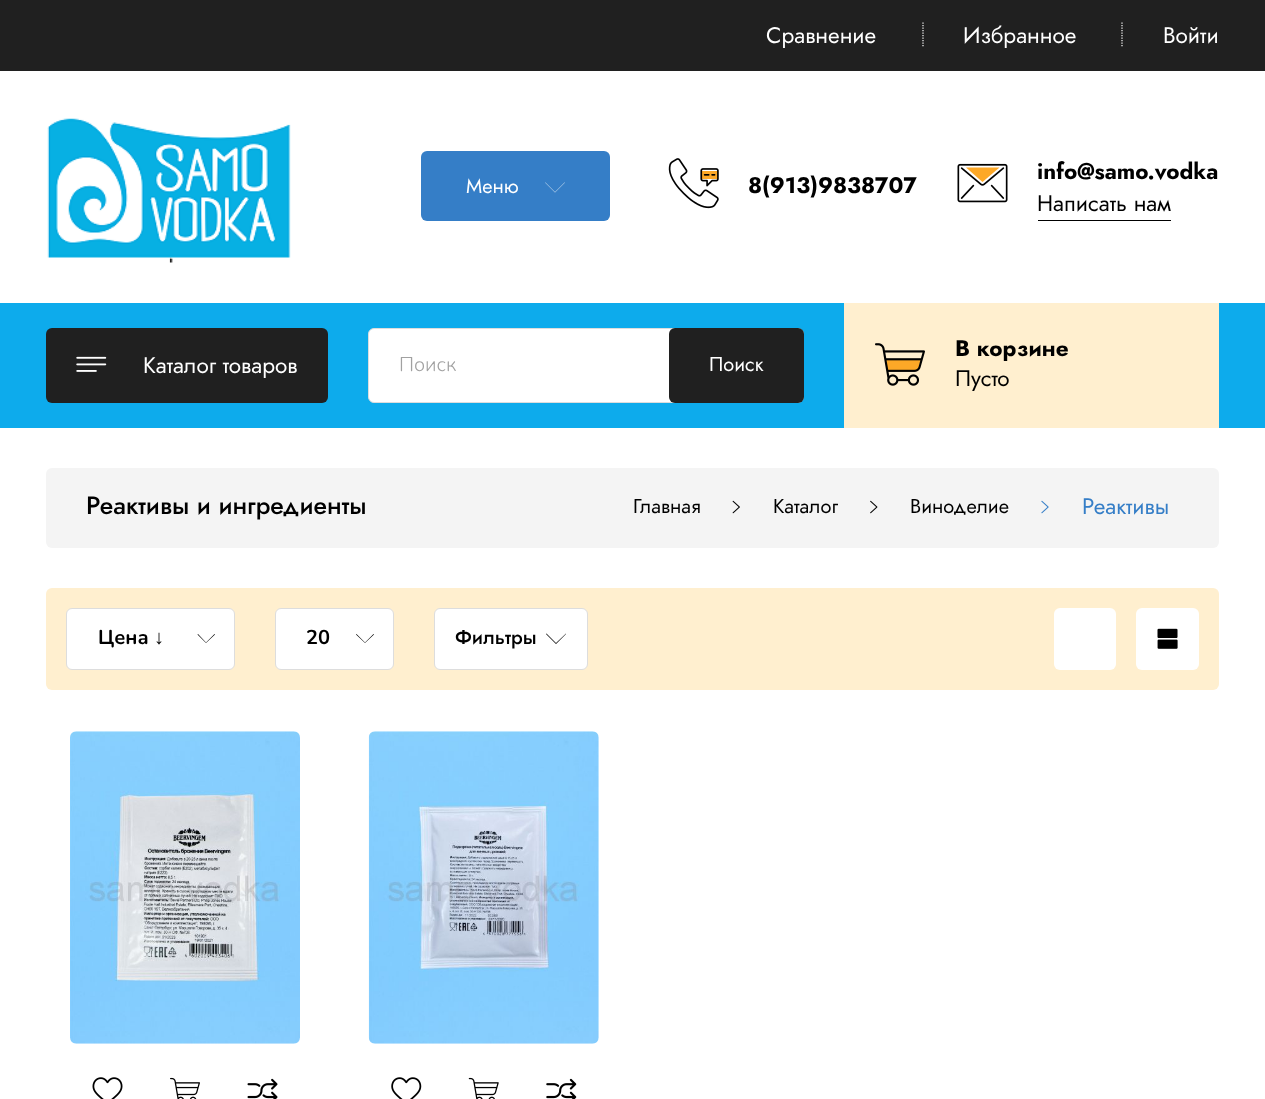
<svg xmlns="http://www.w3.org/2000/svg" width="1265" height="1099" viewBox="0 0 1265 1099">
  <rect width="100%" height="100%" fill="#ffffff"/>
  <rect x="0" y="0" width="1265" height="71" fill="#202020"/>
  <text x="766" y="43" font-family="Jost" font-size="22.5" fill="#ffffff">Сравнение</text>
  <path d="M923 22.5V47.5" fill="none" stroke="#ffffff" stroke-width="1.2" stroke-dasharray="1.25 1.25"/>
  <text x="963" y="43" font-family="Jost" font-size="22.5" fill="#ffffff">Избранное</text>
  <path d="M1122 22.5V47.5" fill="none" stroke="#ffffff" stroke-width="1.2" stroke-dasharray="1.25 1.25"/>
  <text x="1163" y="43" font-family="Jost" font-size="22.5" fill="#ffffff">Войти</text>
  <image x="47" y="118" width="244" height="145" href="img1.png"/>
  <rect x="421" y="151" width="189" height="70" rx="6" fill="#357ec7"/>
  <text x="466" y="193" font-family="Jost" font-size="20" fill="#ffffff">Меню</text>
  <path d="M564.5 182.5L555 192L545.5 182.5H545L555 192.5L565 182.5Z" fill="#ffffff"/>
  <rect x="702" y="171" width="16" height="8" fill="#fda827"/>
  <image x="668" y="158" width="51" height="51" href="img2.png"/>
  <image x="700" y="168" width="19" height="19" href="img3.png"/>
  <image x="703" y="174" width="7" height="2" href="img4.png"/>
  <image x="711" y="174" width="5" height="2" href="img5.png"/>
  <text x="748" y="193" font-family="Jost" font-size="22.5" font-weight="bold" fill="#000000">8(913)9838707</text>
  <image x="957" y="163" width="51" height="40" href="img6.png"/>
  <image x="960" y="167" width="45" height="19" href="img7.png"/>
  <path d="M982.5 182L966 167.5H999.5Z" fill="#fda827"/>
  <image x="960" y="184" width="15" height="15" href="img8.png"/>
  <image x="990" y="184" width="15" height="15" href="img9.png"/>
  <text x="1037" y="179" font-family="Jost" font-size="22.5" font-weight="bold" fill="#000000">info@samo.vodka</text>
  <text x="1037" y="211" font-family="Jost" font-size="22.5" fill="#000000">Написать нам</text>
  <rect x="1038" y="220" width="133" height="1" fill="#000000"/>
  <rect x="0" y="303" width="1265" height="125" fill="#0dabec"/>
  <rect x="46" y="328" width="282" height="75" rx="6" fill="#202020"/>
  <image x="76" y="356" width="31" height="16" href="img10.png"/>
  <text x="143" y="373" font-family="Jost" font-size="22.5" fill="#ffffff">Каталог товаров</text>
  <rect x="368.5" y="328.5" width="435" height="74" rx="5.5" fill="#ffffff" stroke="#dddddd"/>
  <text x="399" y="371" font-family="Nunito" font-size="20" font-weight="300" fill="#a1a1a1">Поиск</text>
  <rect x="669" y="328" width="135" height="75" rx="6" fill="#202020"/>
  <text x="709" y="371" font-family="Jost" font-size="20" fill="#ffffff">Поиск</text>
  <rect x="844" y="303" width="375" height="125" fill="#ffefcf"/>
  <path d="M918 370.5H887.5L886 359H921Z" fill="#fda827"/>
  <image x="875" y="343" width="50" height="43" href="img11.png"/>
  <text x="955" y="356" font-family="Jost" font-size="22.5" font-weight="bold" fill="#000000">В корзине</text>
  <text x="955" y="386" font-family="Jost" font-size="22.5" fill="#000000">Пусто</text>
  <rect x="46" y="468" width="1173" height="80" rx="6" fill="#f4f4f4"/>
  <text x="86" y="514" font-family="Jost" font-size="25" font-weight="500" fill="#000000">Реактивы и ингредиенты</text>
  <text x="633" y="513" font-family="Jost" font-size="20" fill="#000000">Главная</text>
  <image x="732" y="500" width="8" height="14" href="img12.png"/>
  <text x="773" y="513" font-family="Jost" font-size="20" fill="#000000">Каталог</text>
  <image x="870" y="500" width="8" height="14" href="img13.png"/>
  <text x="910" y="513" font-family="Jost" font-size="20" fill="#000000">Виноделие</text>
  <image x="1041" y="500" width="8" height="14" href="img14.png"/>
  <text x="1082" y="514" font-family="Jost" font-size="22.5" fill="#357ec7">Реактивы</text>
  <rect x="46" y="588" width="1173" height="102" rx="6" fill="#ffefcf"/>
  <rect x="66.5" y="608.5" width="168" height="61" rx="5.5" fill="#ffffff" stroke="#dddddd"/>
  <text x="98" y="644" font-family="Nunito" font-size="20" font-weight="bold" fill="#000000">Цена</text>
  <text x="154" y="644" font-family="Liberation Sans" font-size="20" font-weight="bold" fill="#000000">↓</text>
  <path d="M214.5 634L206 642.5L198 634L197.5 634.5L206 643L215 634.5Z" fill="#000000"/>
  <rect x="275.5" y="608.5" width="118" height="61" rx="5.5" fill="#ffffff" stroke="#dddddd"/>
  <text x="306" y="644" font-family="Nunito" font-size="20" font-weight="bold" fill="#000000">20</text>
  <path d="M373.5 634L365 642.5L356.5 634L356 634.5L365 643L374 634.5Z" fill="#000000"/>
  <rect x="434.5" y="608.5" width="153" height="61" rx="5.5" fill="#ffffff" stroke="#dddddd"/>
  <text x="455" y="644" font-family="Jost" font-size="20" font-weight="500" fill="#000000">Фильтры</text>
  <path d="M566 633.5L556 643L546.5 633.5L546 634L556 644L566 634Z" fill="#000000"/>
  <rect x="1054" y="608" width="62" height="62" rx="6" fill="#ffffff"/>
  <rect x="1136" y="608" width="63" height="62" rx="6" fill="#ffffff"/>
  <image x="1157" y="628" width="21" height="21" href="img15.png"/>
  <image x="70" y="731" width="230" height="313" href="img16.png"/>
  <image x="92" y="1077" width="31" height="22" href="img17.png"/>
  <image x="170" y="1077" width="30" height="22" href="img18.png"/>
  <image x="247" y="1078" width="31" height="21" href="img19.png"/>
  <image x="368" y="731" width="231" height="313" href="img20.png"/>
  <image x="391" y="1077" width="31" height="22" href="img21.png"/>
  <image x="468" y="1077" width="31" height="22" href="img22.png"/>
  <image x="546" y="1078" width="31" height="21" href="img23.png"/>
</svg>
